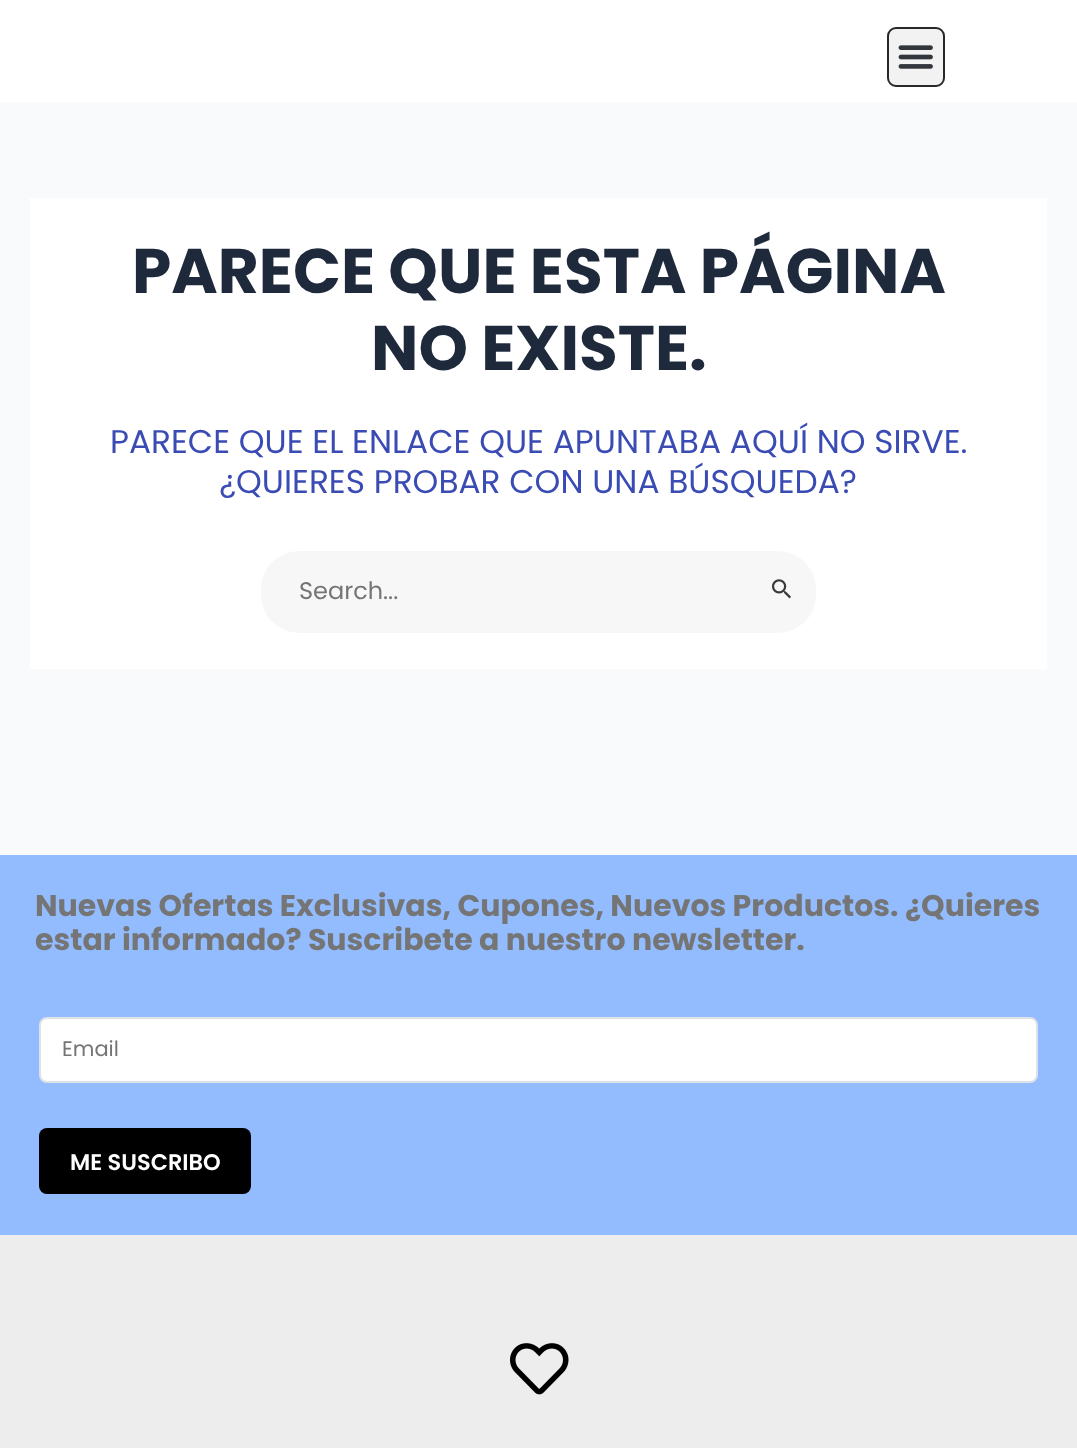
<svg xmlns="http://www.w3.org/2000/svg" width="1077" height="1448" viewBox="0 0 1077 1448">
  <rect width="100%" height="100%" fill="#f9fafb"/>
  <rect x="0" y="0" width="1077" height="102" fill="#ffffff"/>
  <rect x="888" y="28" width="56" height="58" rx="8" fill="#f2f2f2" stroke="#282828" stroke-width="2"/>
  <image x="898" y="45" width="35" height="24" href="img1.png"/>
  <rect x="30" y="198" width="1017" height="471" fill="#ffffff"/>
  <text x="132" y="293" font-family="Poppins" font-size="63" font-weight="bold" fill="#1e293b">PARECE QUE ESTA PÁGINA</text>
  <text x="371" y="370" font-family="Poppins" font-size="63" font-weight="bold" fill="#1e293b">NO EXISTE.</text>
  <text x="110" y="453" font-family="Poppins" font-size="32.8" fill="#3a4cb4">PARECE QUE EL ENLACE QUE APUNTABA AQUÍ NO SIRVE.</text>
  <text x="219" y="493" font-family="Poppins" font-size="32.8" fill="#3a4cb4">¿QUIERES PROBAR CON UNA BÚSQUEDA?</text>
  <rect x="261" y="551" width="555" height="82" rx="38" fill="#f7f7f7"/>
  <text x="299" y="599" font-family="Poppins" font-size="24" fill="#757575">Search...</text>
  <image x="772" y="579" width="19" height="20" href="img2.png"/>
  <rect x="0" y="855" width="1077" height="380" fill="#93bcff"/>
  <text x="35" y="916" font-family="Poppins" font-size="30" font-weight="bold" fill="#757575">Nuevas Ofertas Exclusivas, Cupones, Nuevos Productos. ¿Quieres</text>
  <text x="35" y="950" font-family="Poppins" font-size="30" font-weight="bold" fill="#757575">estar informado? Suscribete a nuestro newsletter.</text>
  <rect x="40" y="1018" width="997" height="64" rx="7" fill="#ffffff" stroke="#dfe1e8" stroke-width="2"/>
  <text x="62" y="1056" font-family="Poppins" font-size="21" fill="#757575">Email</text>
  <rect x="39" y="1128" width="212" height="66" rx="8" fill="#000000"/>
  <text x="70" y="1170" font-family="Poppins" font-size="22.5" font-weight="600" fill="#ffffff">ME SUSCRIBO</text>
  <rect x="0" y="1235" width="1077" height="213" fill="#ededed"/>
  <image x="510" y="1343" width="59" height="52" href="img3.png"/>
</svg>
